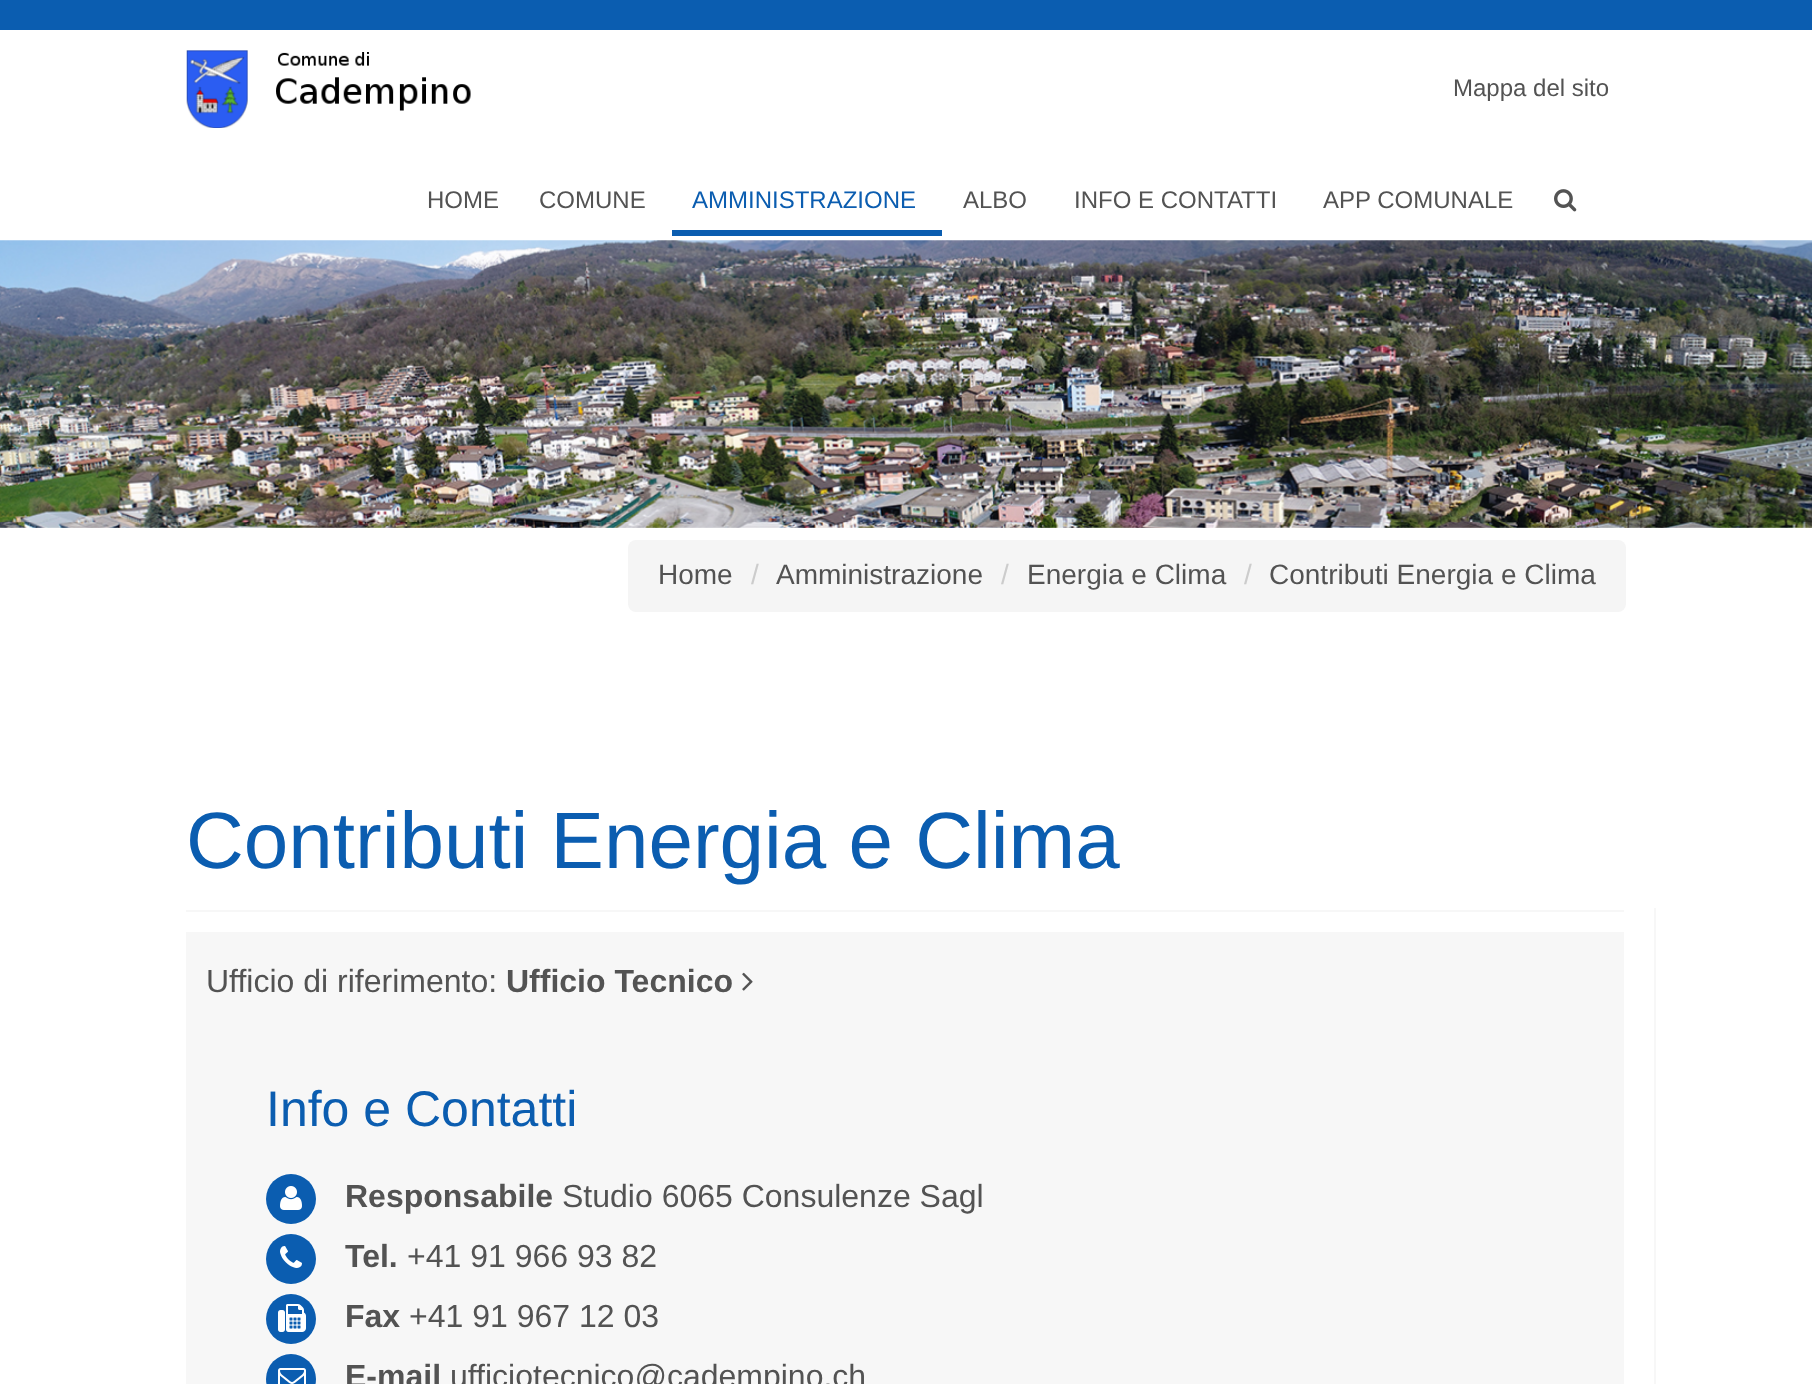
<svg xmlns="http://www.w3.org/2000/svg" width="1812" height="1384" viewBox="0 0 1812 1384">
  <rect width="100%" height="100%" fill="#ffffff"/>
  <rect x="0" y="0" width="1812" height="30" fill="#0b5db0"/>
  <image x="186" y="50" width="285" height="78" href="img1.png"/>
  <text x="1453" y="96" font-family="Liberation Sans" font-size="24" fill="#535353">Mappa del sito</text>
  <text x="427" y="208" font-family="Liberation Sans" font-size="24" fill="#535353">HOME</text>
  <text x="539" y="208" font-family="Liberation Sans" font-size="24" fill="#535353">COMUNE</text>
  <rect x="672" y="230" width="270" height="6" fill="#0b5db0"/>
  <text x="692" y="208" font-family="Liberation Sans" font-size="24" fill="#0b5db0">AMMINISTRAZIONE</text>
  <text x="963" y="208" font-family="Liberation Sans" font-size="24" fill="#535353">ALBO</text>
  <text x="1074" y="208" font-family="Liberation Sans" font-size="24" fill="#535353">INFO E CONTATTI</text>
  <text x="1323" y="208" font-family="Liberation Sans" font-size="24" fill="#535353">APP COMUNALE</text>
  <image x="1554" y="189" width="23" height="23" href="img2.png"/>
  <image x="0" y="240" width="1812" height="288" href="img3.png"/>
  <rect x="628" y="540" width="998" height="72" rx="8" fill="#f5f5f5"/>
  <text x="658" y="584" font-family="Liberation Sans" font-size="28" fill="#535353">Home</text>
  <text x="751" y="584" font-family="Liberation Sans" font-size="28" fill="#cccccc">/</text>
  <text x="776" y="584" font-family="Liberation Sans" font-size="28" fill="#535353">Amministrazione</text>
  <text x="1001" y="584" font-family="Liberation Sans" font-size="28" fill="#cccccc">/</text>
  <text x="1027" y="584" font-family="Liberation Sans" font-size="28" fill="#535353">Energia e Clima</text>
  <text x="1244" y="584" font-family="Liberation Sans" font-size="28" fill="#cccccc">/</text>
  <text x="1269" y="584" font-family="Liberation Sans" font-size="28" fill="#535353">Contributi Energia e Clima</text>
  <text x="186" y="868" font-family="Liberation Sans" font-size="80" fill="#0b5db0">Contributi Energia e Clima</text>
  <rect x="1654" y="908" width="2" height="476" fill="#f7f7f7"/>
  <rect x="186" y="910" width="1438" height="2" fill="#f7f7f7"/>
  <rect x="186" y="932" width="1438" height="452" fill="#f7f7f7"/>
  <text x="206" y="992" font-family="Liberation Sans" font-size="32" fill="#535353">Ufficio di riferimento:</text>
  <text x="506" y="992" font-family="Liberation Sans" font-size="32" font-weight="bold" fill="#535353">Ufficio Tecnico</text>
  <image x="742" y="972" width="11" height="19" href="img4.png"/>
  <text x="266" y="1126" font-family="Liberation Sans" font-size="50" fill="#0b5db0">Info e Contatti</text>
  <circle cx="291" cy="1199" r="25" fill="#0b5db0"/>
  <image x="280" y="1186" width="22" height="24" href="img5.png"/>
  <text x="345" y="1207" font-family="Liberation Sans" font-size="32" font-weight="bold" fill="#535353">Responsabile</text>
  <text x="562" y="1207" font-family="Liberation Sans" font-size="32" fill="#535353">Studio 6065 Consulenze Sagl</text>
  <circle cx="291" cy="1259" r="25" fill="#0b5db0"/>
  <image x="280" y="1246" width="22" height="22" href="img6.png"/>
  <text x="345" y="1267" font-family="Liberation Sans" font-size="32" font-weight="bold" fill="#535353">Tel.</text>
  <text x="407" y="1267" font-family="Liberation Sans" font-size="32" fill="#535353">+41 91 966 93 82</text>
  <circle cx="291" cy="1319" r="25" fill="#0b5db0"/>
  <image x="278" y="1304" width="28" height="28" href="img7.png"/>
  <text x="345" y="1327" font-family="Liberation Sans" font-size="32" font-weight="bold" fill="#535353">Fax</text>
  <text x="409" y="1327" font-family="Liberation Sans" font-size="32" fill="#535353">+41 91 967 12 03</text>
  <circle cx="291" cy="1379" r="25" fill="#0b5db0"/>
  <image x="278" y="1368" width="28" height="16" href="img8.png"/>
  <text x="345" y="1387" font-family="Liberation Sans" font-size="32" font-weight="bold" fill="#535353">E-mail</text>
  <text x="450" y="1387" font-family="Liberation Sans" font-size="32" fill="#535353">ufficiotecnico@cadempino.ch</text>
</svg>
